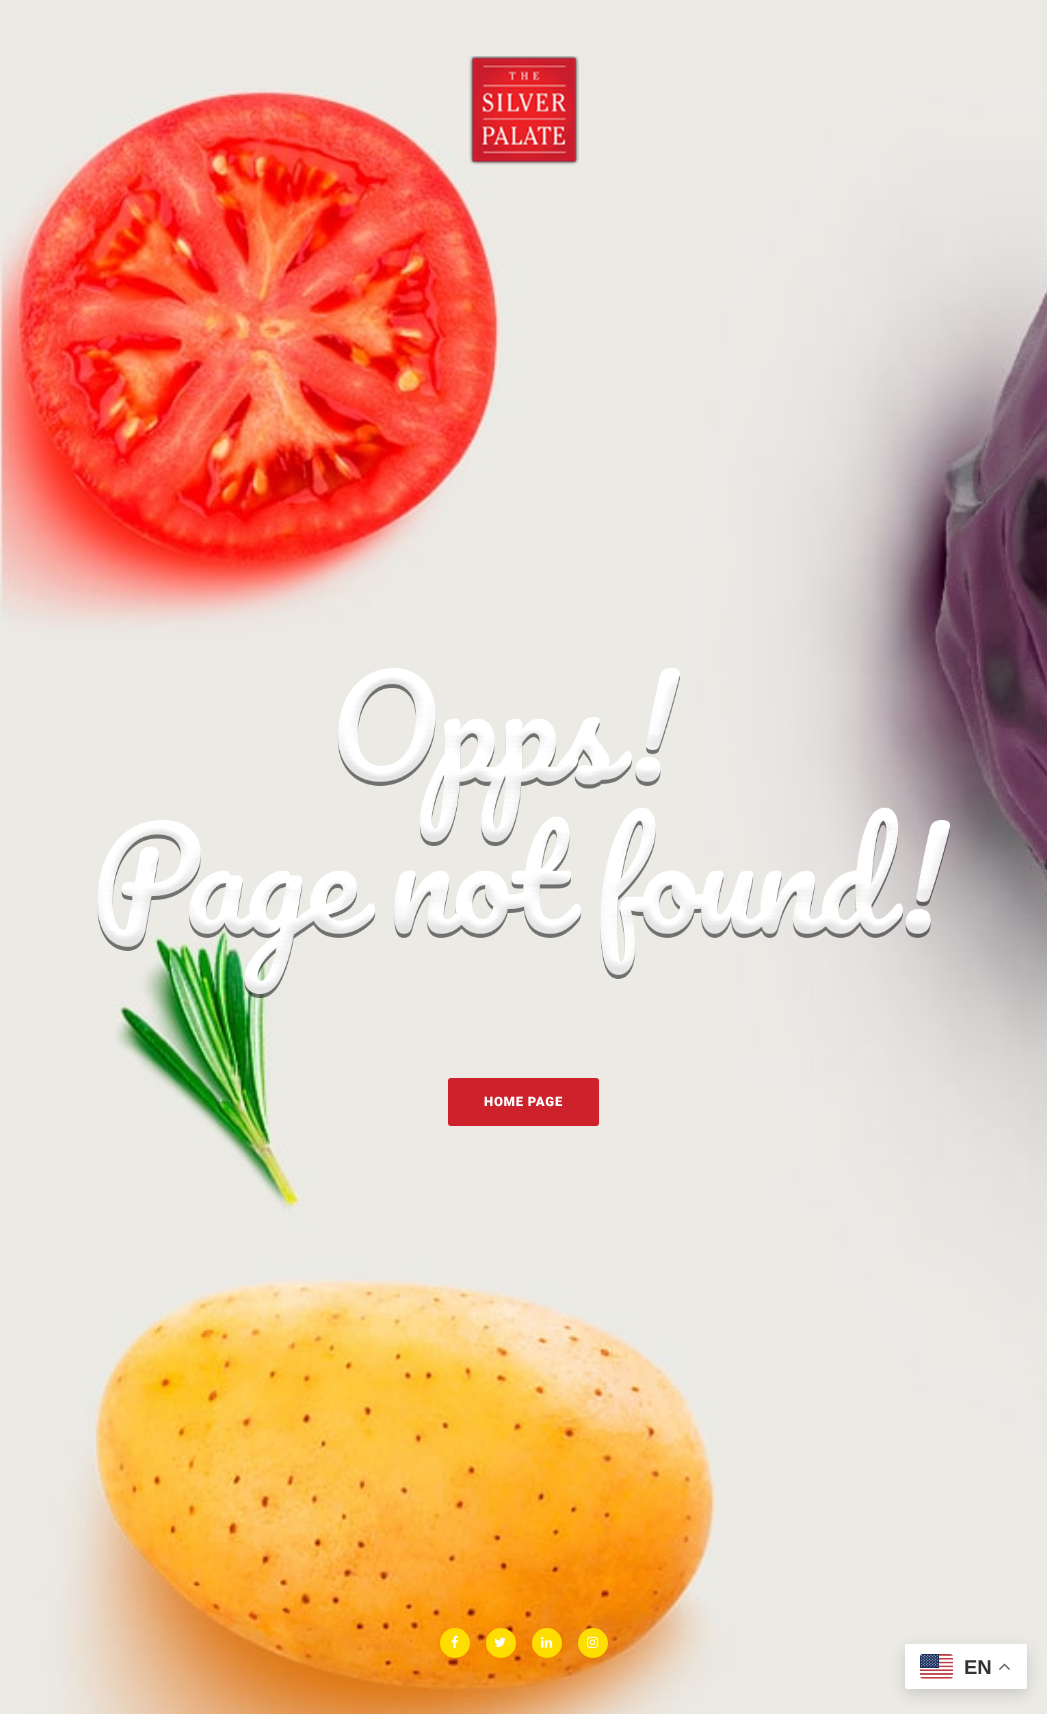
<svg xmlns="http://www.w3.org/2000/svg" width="1047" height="1714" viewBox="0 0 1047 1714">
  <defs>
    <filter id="blur1" x="-50%" y="-200%" width="200%" height="500%"><feGaussianBlur stdDeviation="7.5"/></filter>
  </defs>
  <rect width="100%" height="100%" fill="#eae9e4"/>
  <image x="0" y="86" width="1047" height="1628" href="img1.png"/>
  <image x="469" y="56" width="110" height="109" href="img2.png"/>
  <image x="97" y="668" width="853" height="330" href="img3.png"/>
  <rect x="448" y="1078" width="151" height="48" rx="3" fill="#cd222b"/>
  <text x="484" y="1106" font-family="Roboto" font-size="13" font-weight="900" letter-spacing="0.75" fill="#ffffff">HOME PAGE</text>
  <circle cx="455" cy="1643" r="15" fill="#fede00"/>
  <image x="451" y="1635" width="7" height="13" href="img4.png"/>
  <circle cx="501" cy="1643" r="15" fill="#fede00"/>
  <image x="494" y="1637" width="12" height="10" href="img5.png"/>
  <circle cx="547" cy="1643" r="15" fill="#fede00"/>
  <image x="541" y="1636" width="12" height="12" href="img6.png"/>
  <circle cx="593" cy="1643" r="15" fill="#fede00"/>
  <image x="587" y="1636" width="12" height="12" href="img7.png"/>
  <rect x="905" y="1649" width="122" height="45" rx="2" fill="#000000" fill-opacity="0.15" filter="url(#blur1)"/>
  <rect x="905" y="1644" width="122" height="45" rx="2" fill="#ffffff"/>
  <image x="920" y="1654" width="33" height="25" href="img8.png"/>
  <text x="964" y="1674" font-family="Liberation Sans" font-size="20" font-weight="bold" fill="#333333">EN</text>
  <image x="999" y="1663" width="11" height="7" href="img9.png"/>
</svg>
